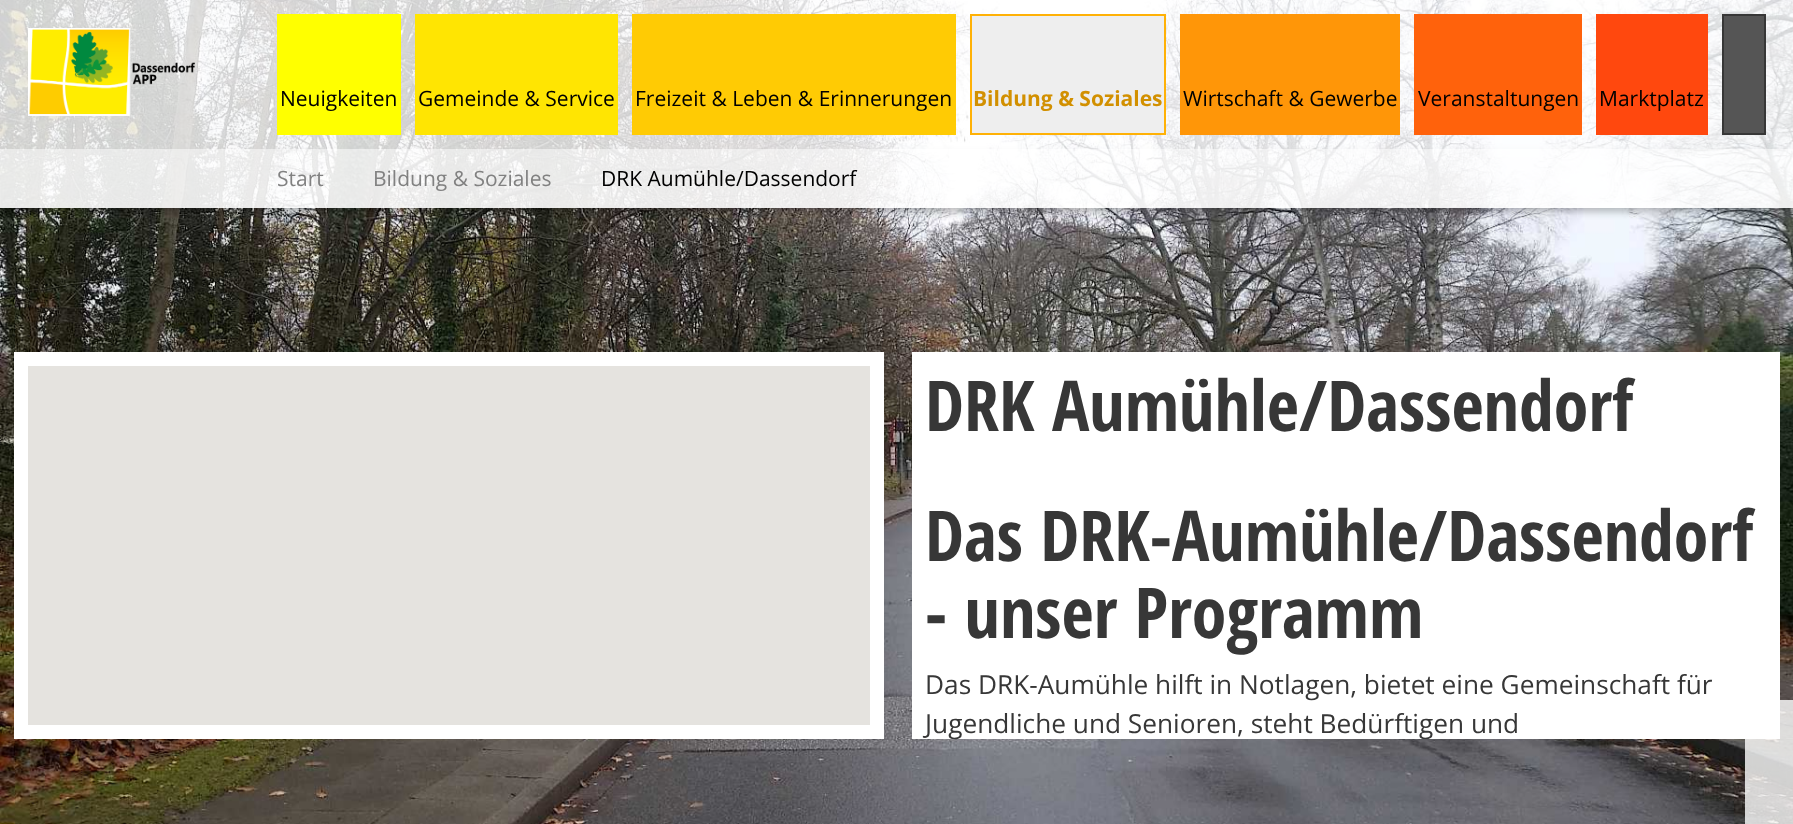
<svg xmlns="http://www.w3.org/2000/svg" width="1793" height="824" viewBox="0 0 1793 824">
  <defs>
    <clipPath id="clip1"><path d="M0 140H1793V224H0ZM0 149H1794V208H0Z" clip-rule="evenodd"/></clipPath>
    <filter id="blur1" x="-50%" y="-200%" width="200%" height="500%"><feGaussianBlur stdDeviation="3.5"/></filter>
    <clipPath id="clip2"><rect x="898" y="352" width="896" height="387"/></clipPath>
  </defs>
  <rect width="100%" height="100%" fill="#ffffff"/>
  <image x="0" y="0" width="1793" height="824" href="img1.png"/>
  <g clip-path="url(#clip1)">
    <rect x="0" y="152" width="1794" height="60" fill="#000000" fill-opacity="0.25" filter="url(#blur1)"/>
  </g>
  <rect x="0" y="0" width="1793" height="149" fill="#ffffff" fill-opacity="0.8"/>
  <image x="28" y="28" width="167" height="88" href="img2.png"/>
  <rect x="277" y="14" width="124" height="121" fill="#ffff00"/>
  <text x="280" y="106" font-family="Open Sans" font-size="21" fill="#000000">Neuigkeiten</text>
  <rect x="415" y="14" width="203" height="121" fill="#ffe502"/>
  <text x="418" y="106" font-family="Open Sans" font-size="21" fill="#000000">Gemeinde &amp; Service</text>
  <rect x="632" y="14" width="324" height="121" fill="#ffcb04"/>
  <text x="635" y="106" font-family="Open Sans" font-size="21" fill="#000000">Freizeit &amp; Leben &amp; Erinnerungen</text>
  <rect x="971" y="15" width="194" height="119" fill="#eeeeee" stroke="#ffb106" stroke-width="2"/>
  <text x="973" y="106" font-family="Open Sans" font-size="21" font-weight="bold" fill="#d29000">Bildung &amp; Soziales</text>
  <rect x="1180" y="14" width="220" height="121" fill="#ff9608"/>
  <text x="1183" y="106" font-family="Open Sans" font-size="21" fill="#000000">Wirtschaft &amp; Gewerbe</text>
  <rect x="1414" y="14" width="168" height="121" fill="#ff620c"/>
  <text x="1418" y="106" font-family="Open Sans" font-size="21" fill="#000000">Veranstaltungen</text>
  <rect x="1596" y="14" width="112" height="121" fill="#ff480e"/>
  <text x="1599" y="106" font-family="Open Sans" font-size="21" fill="#000000">Marktplatz</text>
  <rect x="1723" y="15" width="42" height="119" fill="none" stroke="#373737" stroke-width="2"/>
  <rect x="1724" y="16" width="40" height="117" fill="#555555"/>
  <rect x="0" y="149" width="1793" height="59" fill="#ffffff" fill-opacity="0.9"/>
  <text x="277" y="186" font-family="Open Sans" font-size="21" fill="#818181">Start</text>
  <text x="373" y="186" font-family="Open Sans" font-size="21" fill="#818181">Bildung &amp; Soziales</text>
  <text x="601" y="186" font-family="Open Sans" font-size="21" fill="#000000">DRK Aumühle/Dassendorf</text>
  <rect x="912" y="352" width="868" height="387" fill="#ffffff"/>
  <rect x="1745" y="700" width="48" height="61" fill="#ffffff" fill-opacity="0.8"/>
  <rect x="1745" y="761" width="48" height="62" fill="#ffffff" fill-opacity="0.8"/>
  <rect x="1745" y="823" width="48" height="1" fill="#ffffff" fill-opacity="0.8"/>
  <rect x="14" y="352" width="870" height="387" fill="#ffffff"/>
  <rect x="28" y="366" width="842" height="359" fill="#e5e3df"/>
  <text x="925" y="431" font-family="Open Sans Condensed" font-size="70" font-weight="bold" fill="#373737">DRK Aumühle/Dassendorf</text>
  <text x="925" y="561" font-family="Open Sans Condensed" font-size="70" font-weight="bold" fill="#373737">Das DRK-Aumühle/Dassendorf</text>
  <text x="925" y="638" font-family="Open Sans Condensed" font-size="70" font-weight="bold" fill="#373737">- unser Programm</text>
  <text x="925" y="694" font-family="Open Sans" font-size="26.25" fill="#373737">Das DRK-Aumühle hilft in Notlagen, bietet eine Gemeinschaft für</text>
  <g clip-path="url(#clip2)">
    <text x="925" y="733" font-family="Open Sans" font-size="26.25" fill="#373737">Jugendliche und Senioren, steht Bedürftigen und</text>
  </g>
</svg>
